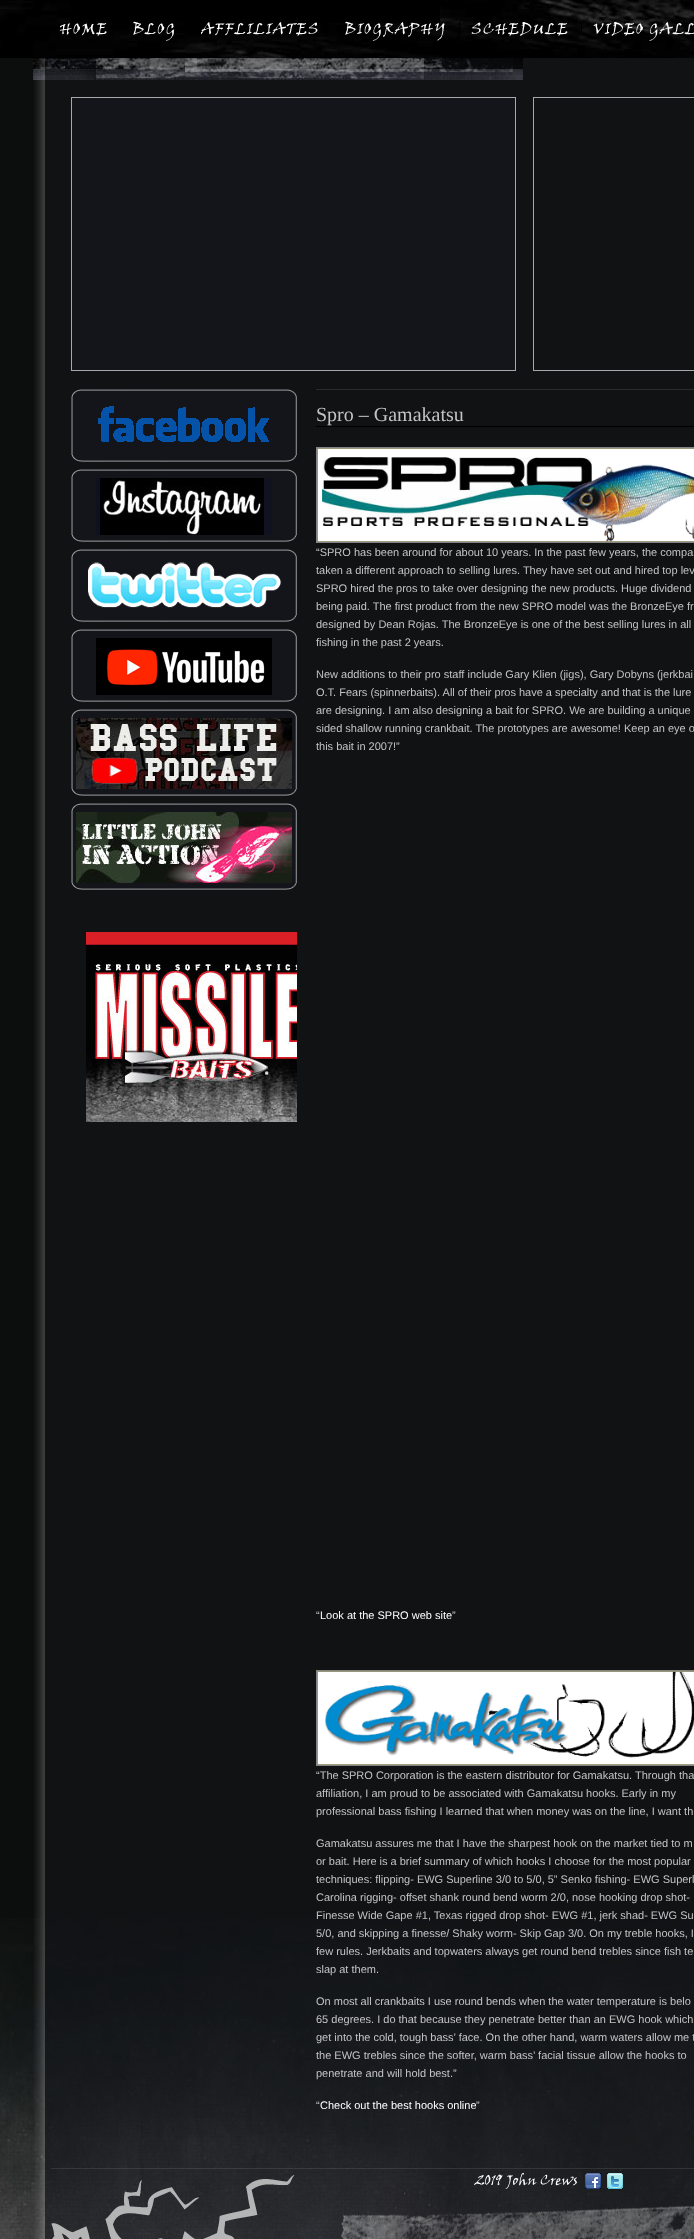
<svg xmlns="http://www.w3.org/2000/svg" width="694" height="2239" viewBox="0 0 694 2239">
  <rect width="100%" height="100%" fill="#0c0e0d"/>
  <image x="0" y="1918" width="694" height="321" href="img1.png"/>
  <image x="0" y="0" width="694" height="58" href="img2.png"/>
  <rect x="70" y="0" width="370" height="23" fill="#000000"/>
  <image x="59" y="23" width="48" height="13" href="img3.png"/>
  <image x="133" y="21" width="42" height="20" href="img4.png"/>
  <image x="201" y="22" width="117" height="14" href="img5.png"/>
  <image x="345" y="21" width="100" height="20" href="img6.png"/>
  <rect x="459" y="22" width="1" height="12" fill="#000000"/>
  <image x="471" y="22" width="97" height="14" href="img7.png"/>
  <rect x="581" y="23" width="1" height="9" fill="#000000"/>
  <image x="593" y="22" width="50" height="14" href="img8.png"/>
  <image x="649" y="22" width="45" height="19" href="img9.png"/>
  <image x="34" y="58" width="660" height="2181" href="img10.png"/>
  <image x="33" y="58" width="490" height="22" href="img11.png"/>
  <rect x="71.5" y="97.5" width="444" height="273" fill="#14151a" stroke="#a7a8ab"/>
  <rect x="533.5" y="97.5" width="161" height="273" fill="none" stroke="#a7a8ab"/>
  <image x="71" y="389" width="226" height="9" href="img12.png"/>
  <image x="71" y="455" width="226" height="7" href="img13.png"/>
  <image x="71" y="398" width="226" height="57" href="img14.png"/>
  <image x="98" y="406" width="174" height="36" href="img15.png"/>
  <image x="71" y="469" width="226" height="9" href="img12.png"/>
  <image x="71" y="535" width="226" height="7" href="img13.png"/>
  <image x="71" y="478" width="226" height="57" href="img14.png"/>
  <image x="96" y="478" width="176" height="57" href="img16.png"/>
  <image x="71" y="549" width="226" height="9" href="img12.png"/>
  <image x="71" y="615" width="226" height="7" href="img13.png"/>
  <image x="71" y="558" width="226" height="57" href="img14.png"/>
  <image x="88" y="562" width="193" height="46" href="img17.png"/>
  <image x="71" y="629" width="226" height="9" href="img12.png"/>
  <image x="71" y="695" width="226" height="7" href="img13.png"/>
  <image x="71" y="638" width="226" height="57" href="img14.png"/>
  <image x="96" y="638" width="176" height="57" href="img18.png"/>
  <image x="71" y="709" width="226" height="9" href="img12.png"/>
  <image x="71" y="789" width="226" height="7" href="img13.png"/>
  <image x="71" y="718" width="226" height="71" href="img19.png"/>
  <image x="76" y="718" width="216" height="71" href="img20.png"/>
  <image x="71" y="803" width="226" height="9" href="img12.png"/>
  <image x="71" y="883" width="226" height="7" href="img13.png"/>
  <image x="71" y="812" width="226" height="71" href="img19.png"/>
  <image x="76" y="812" width="216" height="71" href="img21.png"/>
  <image x="86" y="932" width="211" height="190" href="img22.png"/>
  <rect x="316" y="389" width="378" height="1" fill="#282a2c"/>
  <rect x="316" y="426" width="378" height="1" fill="#000000"/>
  <text x="316" y="421" font-family="Liberation Serif" font-size="20" fill="#c3c3c4">Spro – Gamakatsu</text>
  <rect x="316.5" y="447.5" width="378" height="95" fill="none" stroke="#838383"/>
  <image x="317" y="448" width="377" height="94" href="img23.png"/>
  <text x="316" y="556" font-family="Liberation Sans" font-size="11" fill="#c3c3c4">“SPRO has been around for about 10 years. In the past few years, the compa</text>
  <text x="316" y="574" font-family="Liberation Sans" font-size="11" fill="#c3c3c4">taken a different approach to selling lures. They have set out and hired top lev</text>
  <text x="316" y="592" font-family="Liberation Sans" font-size="11" fill="#c3c3c4">SPRO hired the pros to take over designing the new products. Huge dividend</text>
  <text x="316" y="610" font-family="Liberation Sans" font-size="11" fill="#c3c3c4">being paid. The first product from the new SPRO model was the BronzeEye fr</text>
  <text x="316" y="628" font-family="Liberation Sans" font-size="11" fill="#c3c3c4">designed by Dean Rojas. The BronzeEye is one of the best selling lures in all</text>
  <text x="316" y="646" font-family="Liberation Sans" font-size="11" fill="#c3c3c4">fishing in the past 2 years.</text>
  <text x="316" y="678" font-family="Liberation Sans" font-size="11" fill="#c3c3c4">New additions to their pro staff include Gary Klien (jigs), Gary Dobyns (jerkbai</text>
  <text x="316" y="696" font-family="Liberation Sans" font-size="11" fill="#c3c3c4">O.T. Fears (spinnerbaits). All of their pros have a specialty and that is the lure</text>
  <text x="316" y="714" font-family="Liberation Sans" font-size="11" fill="#c3c3c4">are designing. I am also designing a bait for SPRO. We are building a unique</text>
  <text x="316" y="732" font-family="Liberation Sans" font-size="11" fill="#c3c3c4">sided shallow running crankbait. The prototypes are awesome! Keep an eye o</text>
  <text x="316" y="750" font-family="Liberation Sans" font-size="11" fill="#c3c3c4">this bait in 2007!”</text>
  <text x="316" y="1619" font-family="Liberation Sans" font-size="11" fill="#c3c3c4">“</text>
  <text x="320" y="1619" font-family="Liberation Sans" font-size="11" fill="#ffffff">Look at the SPRO web site</text>
  <text x="452" y="1619" font-family="Liberation Sans" font-size="11" fill="#c3c3c4">”</text>
  <rect x="316.5" y="1670.5" width="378" height="95" fill="none" stroke="#838383"/>
  <image x="317" y="1671" width="377" height="94" href="img24.png"/>
  <text x="316" y="1779" font-family="Liberation Sans" font-size="11" fill="#c3c3c4">“The SPRO Corporation is the eastern distributor for Gamakatsu. Through tha</text>
  <text x="316" y="1797" font-family="Liberation Sans" font-size="11" fill="#c3c3c4">affiliation, I am proud to be associated with Gamakatsu hooks. Early in my</text>
  <text x="316" y="1815" font-family="Liberation Sans" font-size="11" fill="#c3c3c4">professional bass fishing I learned that when money was on the line, I want th</text>
  <text x="316" y="1847" font-family="Liberation Sans" font-size="11" fill="#c3c3c4">Gamakatsu assures me that I have the sharpest hook on the market tied to m</text>
  <text x="316" y="1865" font-family="Liberation Sans" font-size="11" fill="#c3c3c4">or bait. Here is a brief summary of which hooks I choose for the most popular</text>
  <text x="316" y="1883" font-family="Liberation Sans" font-size="11" fill="#c3c3c4">techniques: flipping- EWG Superline 3/0 to 5/0, 5” Senko fishing- EWG Superl</text>
  <text x="316" y="1901" font-family="Liberation Sans" font-size="11" fill="#c3c3c4">Carolina rigging- offset shank round bend worm 2/0, nose hooking drop shot-</text>
  <text x="316" y="1919" font-family="Liberation Sans" font-size="11" fill="#c3c3c4">Finesse Wide Gape #1, Texas rigged drop shot- EWG #1, jerk shad- EWG Su</text>
  <text x="316" y="1937" font-family="Liberation Sans" font-size="11" fill="#c3c3c4">5/0, and skipping a finesse/ Shaky worm- Skip Gap 3/0. On my treble hooks, I</text>
  <text x="316" y="1955" font-family="Liberation Sans" font-size="11" fill="#c3c3c4">few rules. Jerkbaits and topwaters always get round bend trebles since fish te</text>
  <text x="316" y="1973" font-family="Liberation Sans" font-size="11" fill="#c3c3c4">slap at them.</text>
  <text x="316" y="2005" font-family="Liberation Sans" font-size="11" fill="#c3c3c4">On most all crankbaits I use round bends when the water temperature is belo</text>
  <text x="316" y="2023" font-family="Liberation Sans" font-size="11" fill="#c3c3c4">65 degrees. I do that because they penetrate better than an EWG hook which</text>
  <text x="316" y="2041" font-family="Liberation Sans" font-size="11" fill="#c3c3c4">get into the cold, tough bass’ face. On the other hand, warm waters allow me t</text>
  <text x="316" y="2059" font-family="Liberation Sans" font-size="11" fill="#c3c3c4">the EWG trebles since the softer, warm bass’ facial tissue allow the hooks to</text>
  <text x="316" y="2077" font-family="Liberation Sans" font-size="11" fill="#c3c3c4">penetrate and will hold best.”</text>
  <text x="316" y="2109" font-family="Liberation Sans" font-size="11" fill="#c3c3c4">“</text>
  <text x="320" y="2109" font-family="Liberation Sans" font-size="11" fill="#ffffff">Check out the best hooks online</text>
  <text x="476" y="2109" font-family="Liberation Sans" font-size="11" fill="#c3c3c4">”</text>
  <image x="51" y="2169" width="643" height="70" href="img25.png"/>
  <rect x="51" y="2168" width="643" height="1" fill="#ffffff" fill-opacity="0.1"/>
  <image x="474" y="2174" width="29" height="12" href="img26.png"/>
  <image x="505" y="2173" width="32" height="16" href="img27.png"/>
  <image x="540" y="2174" width="37" height="12" href="img28.png"/>
  <image x="585" y="2173" width="16" height="16" href="img29.png"/>
  <image x="607" y="2173" width="16" height="16" href="img30.png"/>
</svg>
